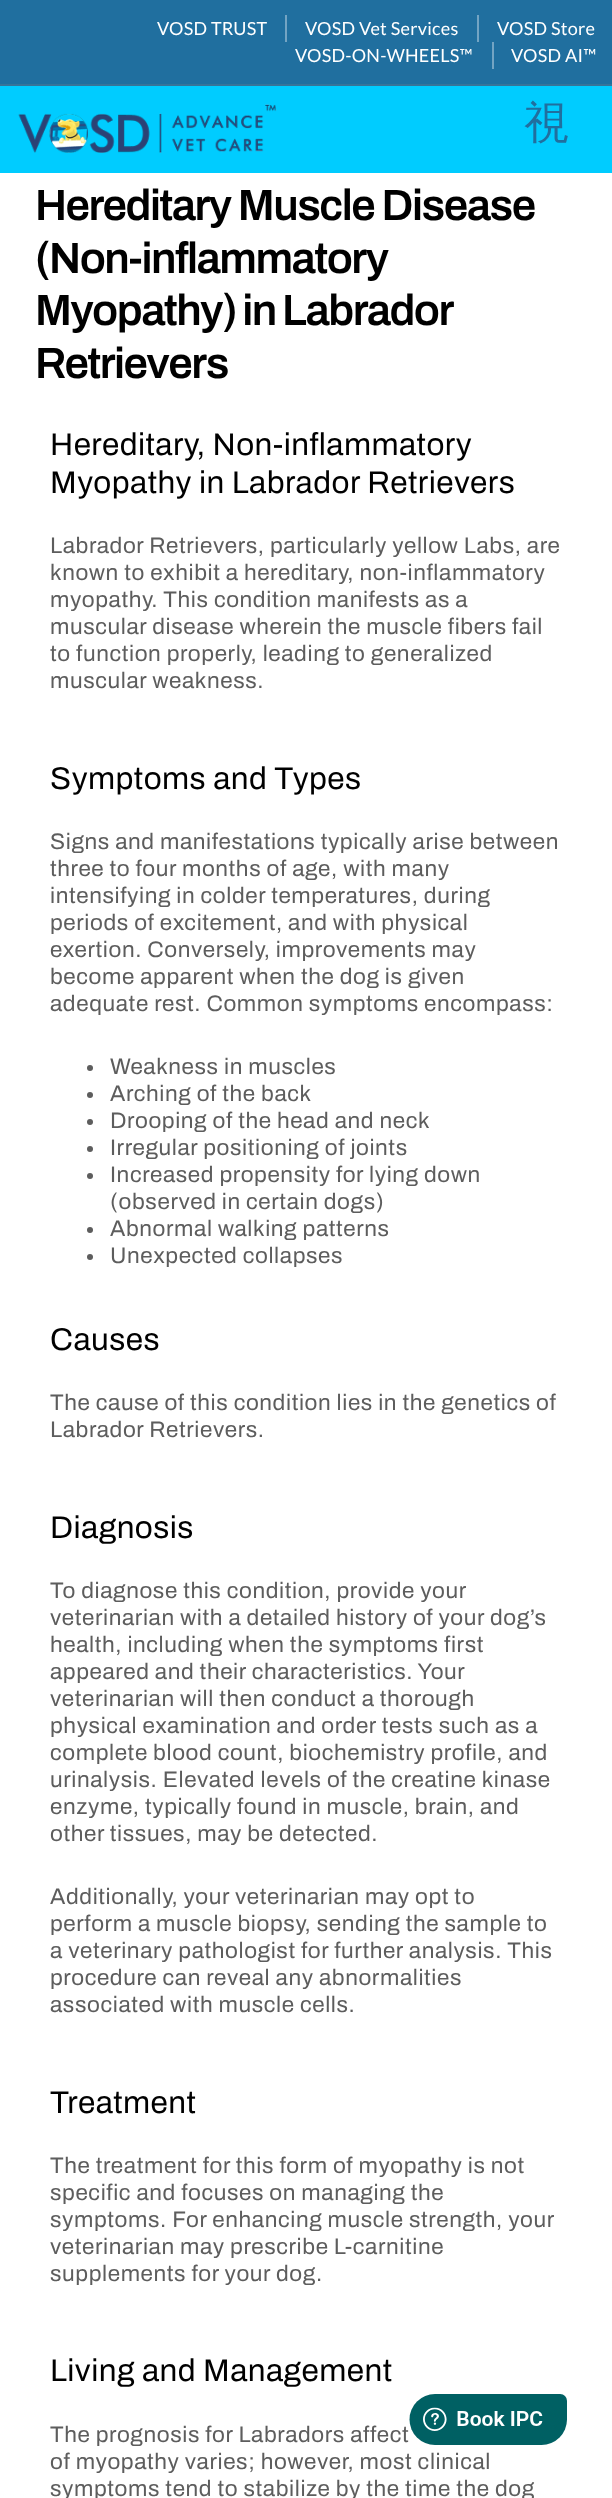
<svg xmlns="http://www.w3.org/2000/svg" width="612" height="2498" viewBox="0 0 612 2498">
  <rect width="100%" height="100%" fill="#ffffff"/>
  <rect x="0" y="0" width="612" height="84" fill="#206f9f"/>
  <rect x="0" y="84" width="612" height="2" fill="#36749a"/>
  <text x="157" y="35" font-family="Lato" font-size="18" letter-spacing="0.25" fill="#ffffff">VOSD TRUST</text>
  <rect x="285" y="15" width="2" height="27" fill="#73a4c3"/>
  <text x="305" y="35" font-family="Lato" font-size="18" letter-spacing="0.25" fill="#ffffff">VOSD Vet Services</text>
  <rect x="477" y="15" width="2" height="27" fill="#73a4c3"/>
  <text x="497" y="35" font-family="Lato" font-size="18" letter-spacing="0.25" fill="#ffffff">VOSD Store</text>
  <text x="295" y="62" font-family="Lato" font-size="18" letter-spacing="0.25" fill="#ffffff">VOSD-ON-WHEELS™</text>
  <rect x="492" y="42" width="2" height="27" fill="#73a4c3"/>
  <text x="511" y="62" font-family="Lato" font-size="18" letter-spacing="0.25" fill="#ffffff">VOSD AI™</text>
  <rect x="0" y="86" width="612" height="87" fill="#00ccff"/>
  <image x="18" y="104" width="259" height="49" href="img1.png"/>
  <text x="524" y="138" font-family="WenQuanYi Zen Hei" font-size="45" font-weight="500" letter-spacing="1" fill="#206f9f">視</text>
  <text x="35" y="220" font-family="Archivo" font-size="43.75" font-weight="600" letter-spacing="-1.5" fill="#000000">Hereditary Muscle Disease</text>
  <text x="35" y="273" font-family="Archivo" font-size="43.75" font-weight="600" letter-spacing="-1.5" fill="#000000">(Non-inflammatory</text>
  <text x="35" y="325" word-spacing="-1" font-family="Archivo" font-size="43.75" font-weight="600" letter-spacing="-1.5" fill="#000000">Myopathy) in Labrador</text>
  <text x="35" y="378" font-family="Archivo" font-size="43.75" font-weight="600" letter-spacing="-1.5" fill="#000000">Retrievers</text>
  <text x="50" y="455" font-family="Archivo" font-size="31.5" letter-spacing="0.45" fill="#000000">Hereditary, Non-inflammatory</text>
  <text x="50" y="493" font-family="Archivo" font-size="31.5" letter-spacing="0.45" fill="#000000">Myopathy in Labrador Retrievers</text>
  <text x="50" y="553" font-family="Archivo" font-size="22.5" letter-spacing="0.6" fill="#5d5d5d">Labrador Retrievers, particularly yellow Labs, are</text>
  <text x="50" y="580" font-family="Archivo" font-size="22.5" letter-spacing="0.6" fill="#5d5d5d">known to exhibit a hereditary, non-inflammatory</text>
  <text x="50" y="607" font-family="Archivo" font-size="22.5" letter-spacing="0.6" fill="#5d5d5d">myopathy. This condition manifests as a</text>
  <text x="50" y="634" font-family="Archivo" font-size="22.5" letter-spacing="0.6" fill="#5d5d5d">muscular disease wherein the muscle fibers fail</text>
  <text x="50" y="661" font-family="Archivo" font-size="22.5" letter-spacing="0.6" fill="#5d5d5d">to function properly, leading to generalized</text>
  <text x="50" y="688" font-family="Archivo" font-size="22.5" letter-spacing="0.6" fill="#5d5d5d">muscular weakness.</text>
  <text x="50" y="789" font-family="Archivo" font-size="31.5" letter-spacing="0.45" fill="#000000">Symptoms and Types</text>
  <text x="50" y="849" font-family="Archivo" font-size="22.5" letter-spacing="0.6" fill="#5d5d5d">Signs and manifestations typically arise between</text>
  <text x="50" y="876" font-family="Archivo" font-size="22.5" letter-spacing="0.6" fill="#5d5d5d">three to four months of age, with many</text>
  <text x="50" y="903" font-family="Archivo" font-size="22.5" letter-spacing="0.6" fill="#5d5d5d">intensifying in colder temperatures, during</text>
  <text x="50" y="930" font-family="Archivo" font-size="22.5" letter-spacing="0.6" fill="#5d5d5d">periods of excitement, and with physical</text>
  <text x="50" y="957" font-family="Archivo" font-size="22.5" letter-spacing="0.6" fill="#5d5d5d">exertion. Conversely, improvements may</text>
  <text x="50" y="984" font-family="Archivo" font-size="22.5" letter-spacing="0.6" fill="#5d5d5d">become apparent when the dog is given</text>
  <text x="50" y="1011" font-family="Archivo" font-size="22.5" letter-spacing="0.6" fill="#5d5d5d">adequate rest. Common symptoms encompass:</text>
  <circle cx="90" cy="1068" r="3" fill="#5d5d5d"/>
  <text x="110" y="1074" font-family="Archivo" font-size="22.5" letter-spacing="0.6" fill="#5d5d5d">Weakness in muscles</text>
  <circle cx="90" cy="1095" r="3" fill="#5d5d5d"/>
  <text x="110" y="1101" font-family="Archivo" font-size="22.5" letter-spacing="0.6" fill="#5d5d5d">Arching of the back</text>
  <circle cx="90" cy="1122" r="3" fill="#5d5d5d"/>
  <text x="110" y="1128" font-family="Archivo" font-size="22.5" letter-spacing="0.6" fill="#5d5d5d">Drooping of the head and neck</text>
  <circle cx="90" cy="1149" r="3" fill="#5d5d5d"/>
  <text x="110" y="1155" font-family="Archivo" font-size="22.5" letter-spacing="0.6" fill="#5d5d5d">Irregular positioning of joints</text>
  <circle cx="90" cy="1176" r="3" fill="#5d5d5d"/>
  <text x="110" y="1182" font-family="Archivo" font-size="22.5" letter-spacing="0.6" fill="#5d5d5d">Increased propensity for lying down</text>
  <text x="110" y="1209" font-family="Archivo" font-size="22.5" letter-spacing="0.6" fill="#5d5d5d">(observed in certain dogs)</text>
  <circle cx="90" cy="1230" r="3" fill="#5d5d5d"/>
  <text x="110" y="1236" font-family="Archivo" font-size="22.5" letter-spacing="0.6" fill="#5d5d5d">Abnormal walking patterns</text>
  <circle cx="90" cy="1257" r="3" fill="#5d5d5d"/>
  <text x="110" y="1263" font-family="Archivo" font-size="22.5" letter-spacing="0.6" fill="#5d5d5d">Unexpected collapses</text>
  <text x="50" y="1350" font-family="Archivo" font-size="31.5" letter-spacing="0.45" fill="#000000">Causes</text>
  <text x="50" y="1410" font-family="Archivo" font-size="22.5" letter-spacing="0.6" fill="#5d5d5d">The cause of this condition lies in the genetics of</text>
  <text x="50" y="1437" font-family="Archivo" font-size="22.5" letter-spacing="0.6" fill="#5d5d5d">Labrador Retrievers.</text>
  <text x="50" y="1538" font-family="Archivo" font-size="31.5" letter-spacing="0.45" fill="#000000">Diagnosis</text>
  <text x="50" y="1598" font-family="Archivo" font-size="22.5" letter-spacing="0.6" fill="#5d5d5d">To diagnose this condition, provide your</text>
  <text x="50" y="1625" font-family="Archivo" font-size="22.5" letter-spacing="0.6" fill="#5d5d5d">veterinarian with a detailed history of your dog’s</text>
  <text x="50" y="1652" font-family="Archivo" font-size="22.5" letter-spacing="0.6" fill="#5d5d5d">health, including when the symptoms first</text>
  <text x="50" y="1679" font-family="Archivo" font-size="22.5" letter-spacing="0.6" fill="#5d5d5d">appeared and their characteristics. Your</text>
  <text x="50" y="1706" font-family="Archivo" font-size="22.5" letter-spacing="0.6" fill="#5d5d5d">veterinarian will then conduct a thorough</text>
  <text x="50" y="1733" font-family="Archivo" font-size="22.5" letter-spacing="0.6" fill="#5d5d5d">physical examination and order tests such as a</text>
  <text x="50" y="1760" font-family="Archivo" font-size="22.5" letter-spacing="0.6" fill="#5d5d5d">complete blood count, biochemistry profile, and</text>
  <text x="50" y="1787" font-family="Archivo" font-size="22.5" letter-spacing="0.6" fill="#5d5d5d">urinalysis. Elevated levels of the creatine kinase</text>
  <text x="50" y="1814" font-family="Archivo" font-size="22.5" letter-spacing="0.6" fill="#5d5d5d">enzyme, typically found in muscle, brain, and</text>
  <text x="50" y="1841" font-family="Archivo" font-size="22.5" letter-spacing="0.6" fill="#5d5d5d">other tissues, may be detected.</text>
  <text x="50" y="1904" font-family="Archivo" font-size="22.5" letter-spacing="0.6" fill="#5d5d5d">Additionally, your veterinarian may opt to</text>
  <text x="50" y="1931" font-family="Archivo" font-size="22.5" letter-spacing="0.6" fill="#5d5d5d">perform a muscle biopsy, sending the sample to</text>
  <text x="50" y="1958" font-family="Archivo" font-size="22.5" letter-spacing="0.6" fill="#5d5d5d">a veterinary pathologist for further analysis. This</text>
  <text x="50" y="1985" font-family="Archivo" font-size="22.5" letter-spacing="0.6" fill="#5d5d5d">procedure can reveal any abnormalities</text>
  <text x="50" y="2012" font-family="Archivo" font-size="22.5" letter-spacing="0.6" fill="#5d5d5d">associated with muscle cells.</text>
  <text x="50" y="2113" font-family="Archivo" font-size="31.5" letter-spacing="0.45" fill="#000000">Treatment</text>
  <text x="50" y="2173" font-family="Archivo" font-size="22.5" letter-spacing="0.6" fill="#5d5d5d">The treatment for this form of myopathy is not</text>
  <text x="50" y="2200" font-family="Archivo" font-size="22.5" letter-spacing="0.6" fill="#5d5d5d">specific and focuses on managing the</text>
  <text x="50" y="2227" font-family="Archivo" font-size="22.5" letter-spacing="0.6" fill="#5d5d5d">symptoms. For enhancing muscle strength, your</text>
  <text x="50" y="2254" font-family="Archivo" font-size="22.5" letter-spacing="0.6" fill="#5d5d5d">veterinarian may prescribe L-carnitine</text>
  <text x="50" y="2281" font-family="Archivo" font-size="22.5" letter-spacing="0.6" fill="#5d5d5d">supplements for your dog.</text>
  <text x="50" y="2381" font-family="Archivo" font-size="31.5" letter-spacing="0.45" fill="#000000">Living and Management</text>
  <text x="50" y="2442" font-family="Archivo" font-size="22.5" letter-spacing="0.6" fill="#5d5d5d">The prognosis for Labradors affect</text>
  <text x="50" y="2469" font-family="Archivo" font-size="22.5" letter-spacing="0.6" fill="#5d5d5d">of myopathy varies; however, most clinical</text>
  <text x="50" y="2496" font-family="Archivo" font-size="22.5" letter-spacing="0.6" fill="#5d5d5d">symptoms tend to stabilize by the time the dog</text>
  <image x="409" y="2394" width="158" height="51" href="img2.png"/>
</svg>
